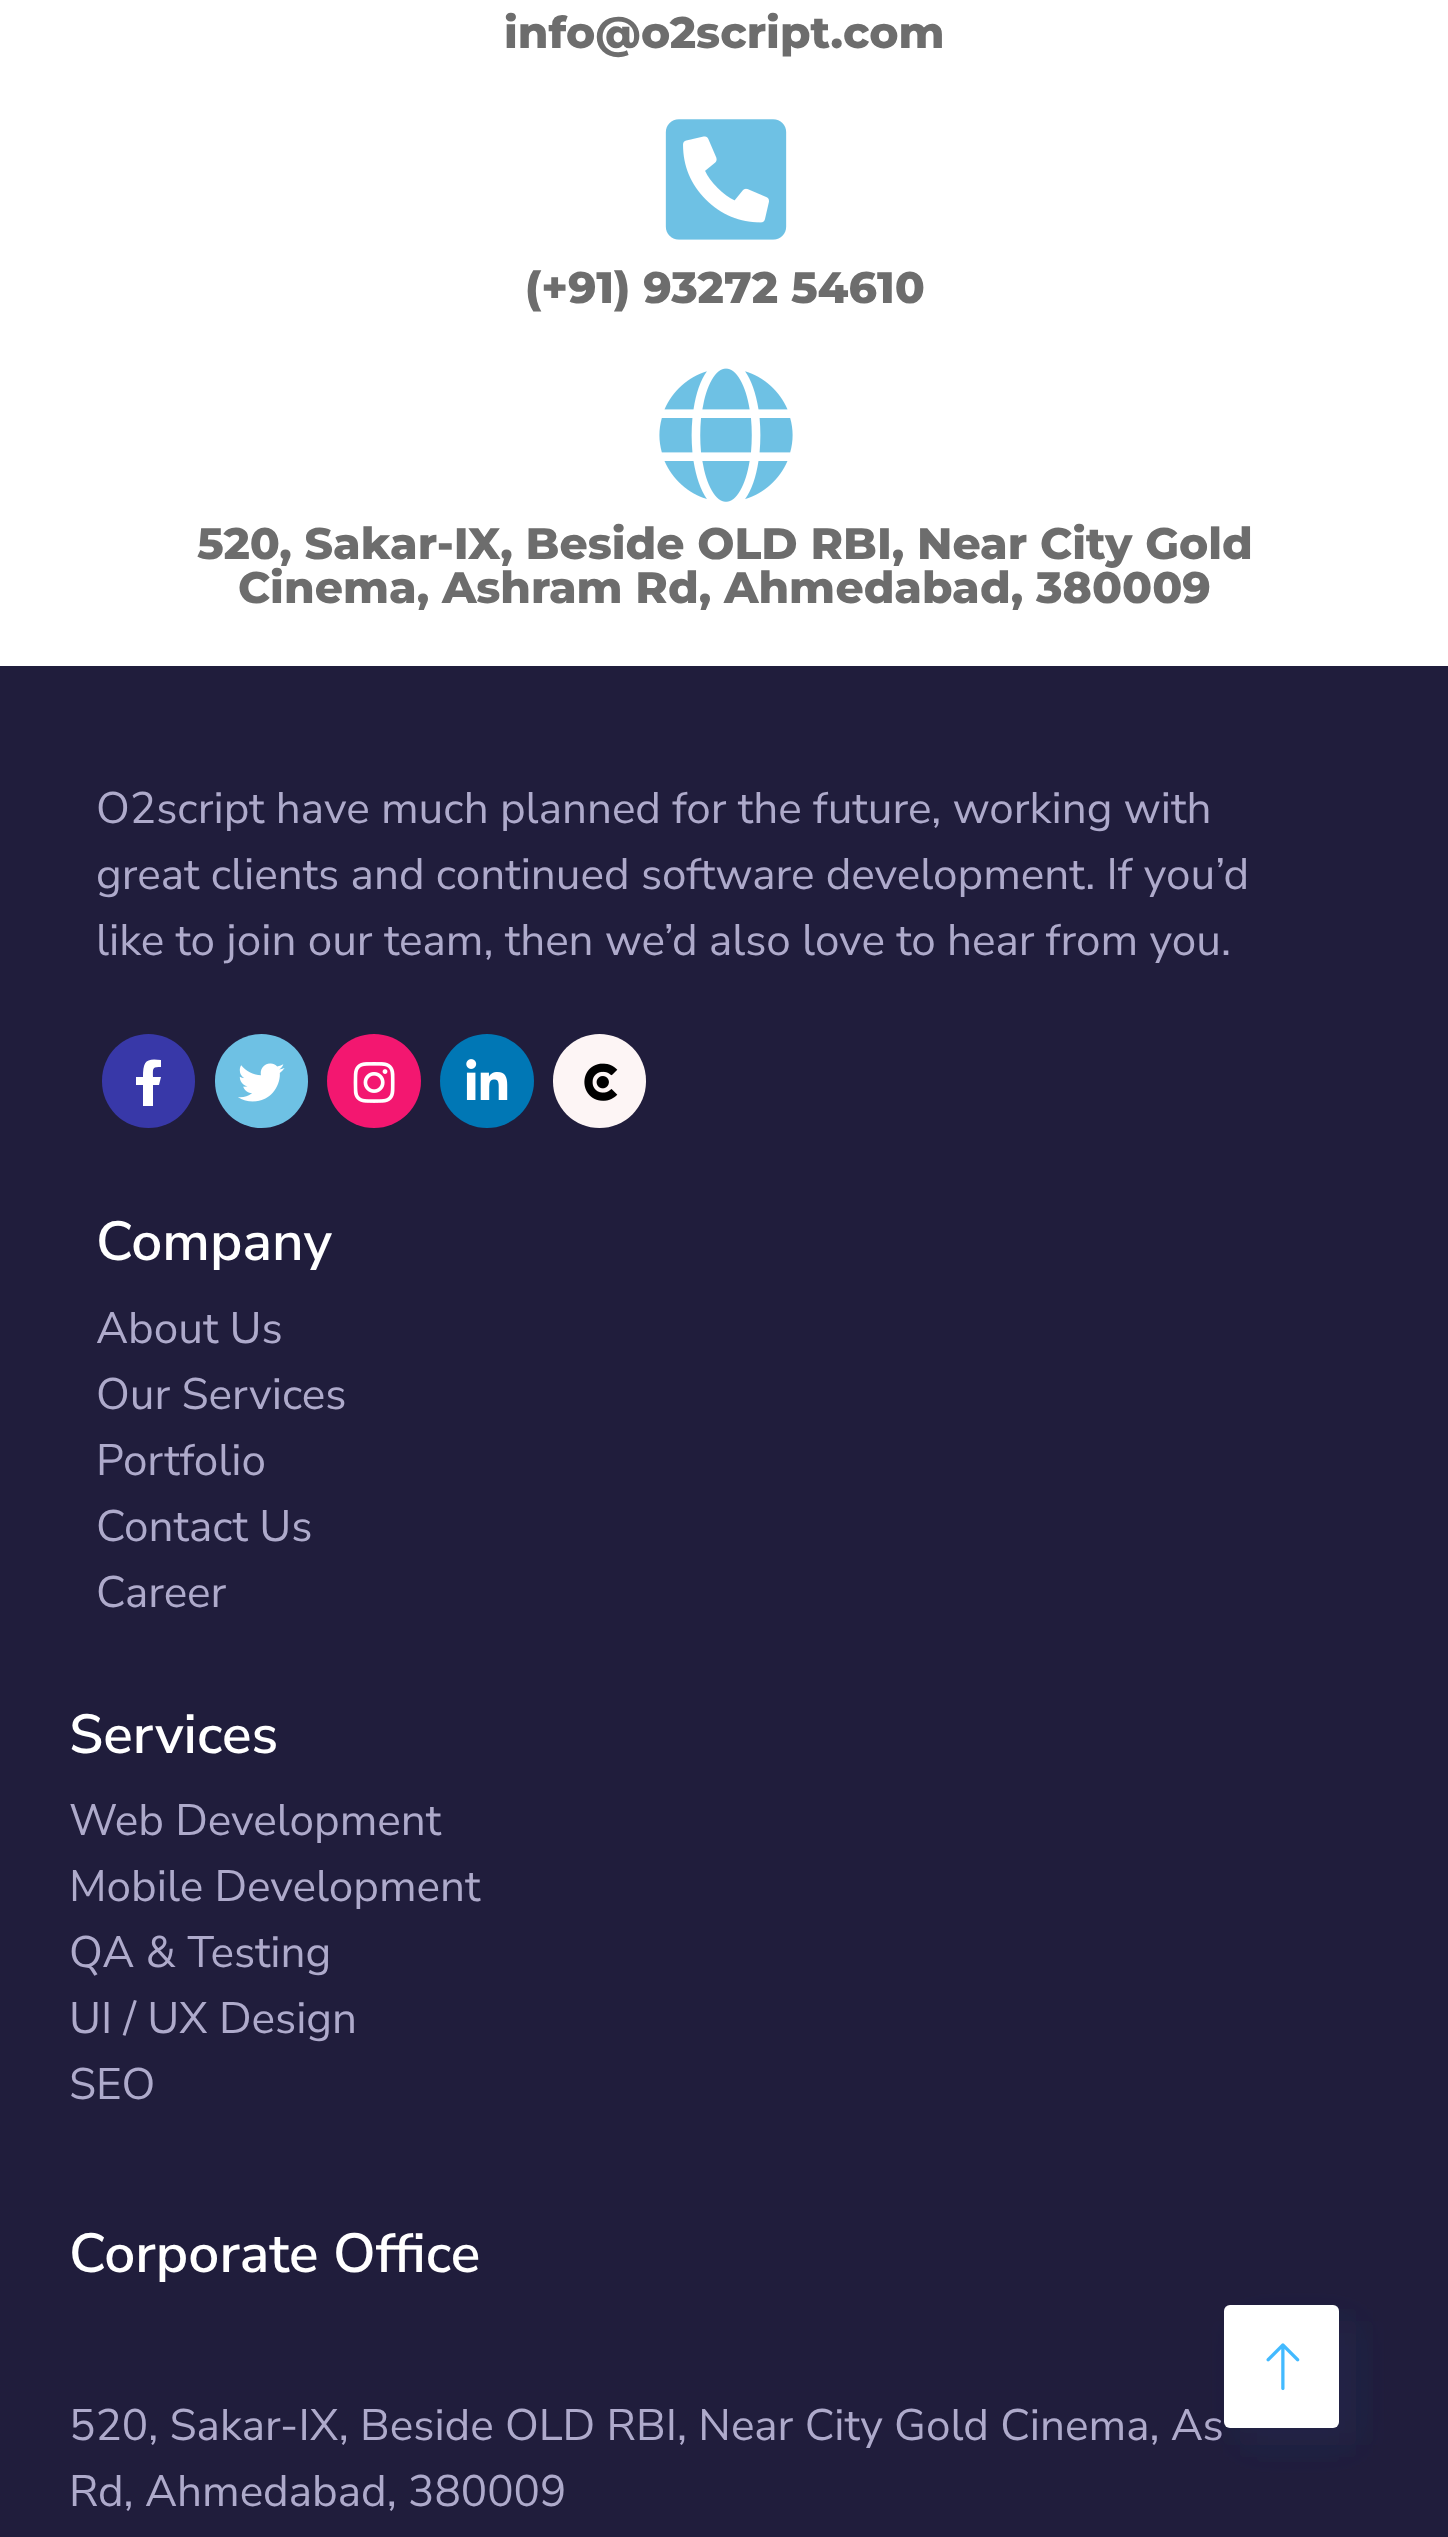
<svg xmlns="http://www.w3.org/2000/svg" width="1448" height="2537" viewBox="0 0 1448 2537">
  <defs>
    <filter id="blur1" x="-50%" y="-200%" width="200%" height="500%"><feGaussianBlur stdDeviation="18"/></filter>
  </defs>
  <rect width="100%" height="100%" fill="#ffffff"/>
  <text x="504" y="48" font-family="Montserrat" font-size="44" font-weight="800" fill="#6d6d6d">info@o2script.com</text>
  <image x="665" y="119" width="122" height="121" href="img1.png"/>
  <text x="525" y="303" font-family="Montserrat" font-size="44" font-weight="800" fill="#6d6d6d">(+91) 93272 54610</text>
  <image x="659" y="368" width="134" height="134" href="img2.png"/>
  <text x="197" y="559" font-family="Montserrat" font-size="44" font-weight="800" fill="#6d6d6d">520, Sakar-IX, Beside OLD RBI, Near City Gold</text>
  <text x="238" y="603" font-family="Montserrat" font-size="44" font-weight="800" fill="#6d6d6d">Cinema, Ashram Rd, Ahmedabad, 380009</text>
  <rect x="0" y="666" width="1448" height="1871" fill="#201d3c"/>
  <text x="96" y="823" font-family="Nunito Sans" font-size="44" fill="#aeaacb">O2script have much planned for the future, working with</text>
  <text x="96" y="889" font-family="Nunito Sans" font-size="44" fill="#aeaacb">great clients and continued software development. If you’d</text>
  <text x="96" y="955" font-family="Nunito Sans" font-size="44" fill="#aeaacb">like to join our team, then we’d also love to hear from you.</text>
  <rect x="102" y="1034" width="93" height="94" rx="46.5" fill="#3838a8"/>
  <path d="M159 1085H153V1106H143V1085H136V1077H143C143 1061 146 1058 161 1060V1067C152 1067 153 1068 153 1077H161Z" fill="#ffffff"/>
  <rect x="215" y="1034" width="93" height="94" rx="46.5" fill="#6ec1e4"/>
  <image x="238" y="1063" width="47" height="39" href="img3.png"/>
  <circle cx="374" cy="1081" r="47" fill="#f31770"/>
  <image x="353" y="1062" width="42" height="41" href="img4.png"/>
  <circle cx="487" cy="1081" r="47" fill="#0077b5"/>
  <image x="466" y="1059" width="42" height="41" href="img5.png"/>
  <rect x="553" y="1034" width="93" height="94" rx="46.5" fill="#fdf5f5"/>
  <image x="584" y="1063" width="34" height="38" href="img6.png"/>
  <text x="96" y="1260" font-family="Nunito Sans" font-size="55" font-weight="600" fill="#ffffff">Company</text>
  <text x="96" y="1343" font-family="Nunito Sans" font-size="44" fill="#aeaacb">About Us</text>
  <text x="96" y="1409" font-family="Nunito Sans" font-size="44" fill="#aeaacb">Our Services</text>
  <text x="96" y="1475" font-family="Nunito Sans" font-size="44" fill="#aeaacb">Portfolio</text>
  <text x="96" y="1541" font-family="Nunito Sans" font-size="44" fill="#aeaacb">Contact Us</text>
  <text x="96" y="1607" font-family="Nunito Sans" font-size="44" fill="#aeaacb">Career</text>
  <text x="69" y="1753" font-family="Nunito Sans" font-size="55" font-weight="600" fill="#ffffff">Services</text>
  <text x="69" y="1835" font-family="Nunito Sans" font-size="44" fill="#aeaacb">Web Development</text>
  <text x="69" y="1901" font-family="Nunito Sans" font-size="44" fill="#aeaacb">Mobile Development</text>
  <text x="69" y="1967" font-family="Nunito Sans" font-size="44" fill="#aeaacb">QA &amp; Testing</text>
  <text x="69" y="2033" font-family="Nunito Sans" font-size="44" fill="#aeaacb">UI / UX Design</text>
  <text x="69" y="2099" font-family="Nunito Sans" font-size="44" fill="#aeaacb">SEO</text>
  <text x="69" y="2272" font-family="Nunito Sans" font-size="55" font-weight="600" fill="#ffffff">Corporate Office</text>
  <text x="69" y="2440" font-family="Nunito Sans" font-size="44" fill="#aeaacb">520, Sakar-IX, Beside OLD RBI, Near City Gold Cinema, As</text>
  <text x="69" y="2506" font-family="Nunito Sans" font-size="44" fill="#aeaacb">Rd, Ahmedabad, 380009</text>
  <rect x="1240" y="2321" width="116" height="124" rx="6" fill="#2a4371" fill-opacity="0.2" filter="url(#blur1)"/>
  <rect x="1224" y="2305" width="115" height="123" rx="6" fill="#ffffff"/>
  <image x="1266" y="2343" width="34" height="48" href="img7.png"/>
</svg>
